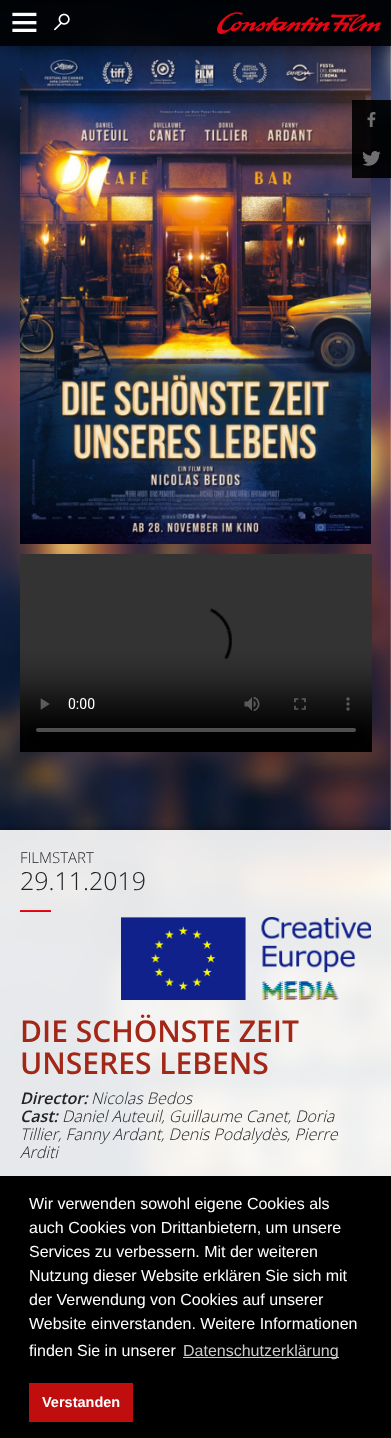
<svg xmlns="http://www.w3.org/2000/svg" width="391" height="1438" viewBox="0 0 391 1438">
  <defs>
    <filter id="blur1" x="-50%" y="-200%" width="200%" height="500%"><feGaussianBlur stdDeviation="7.5"/></filter>
    <clipPath id="clip1"><rect x="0" y="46" width="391" height="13"/></clipPath>
    <clipPath id="clip2"><rect x="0" y="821" width="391" height="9"/></clipPath>
    <filter id="blur2" x="-50%" y="-200%" width="200%" height="500%"><feGaussianBlur stdDeviation="5"/></filter>
  </defs>
  <rect width="100%" height="100%" fill="#ffffff"/>
  <image x="0" y="0" width="391" height="1176" href="img1.png"/>
  <image x="217" y="12" width="164" height="22" href="img5.png"/>
  <rect x="0" y="-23" width="391" height="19" fill="#000000" fill-opacity="0.5" filter="url(#blur1)"/>
  <image x="20" y="46" width="351" height="498" href="img6.png"/>
  <g clip-path="url(#clip1)">
    <rect x="0" y="0" width="391" height="46" fill="#000000" fill-opacity="0.5" filter="url(#blur1)"/>
  </g>
  <rect x="0" y="0" width="391" height="46" fill="#000000" fill-opacity="0.9"/>
  <image x="12" y="12" width="25" height="20" href="img2.png"/>
  <image x="54" y="13" width="16" height="18" href="img3.png"/>
  <image x="217" y="12" width="164" height="22" href="img4.png"/>
  <image x="20" y="554" width="352" height="198" href="img7.png"/>
  <g clip-path="url(#clip2)">
    <rect x="0" y="830" width="391" height="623" fill="#000000" fill-opacity="0.5" filter="url(#blur2)"/>
  </g>
  <rect x="0" y="830" width="391" height="346" fill="#ffffff" fill-opacity="0.9"/>
  <rect x="352" y="100" width="39" height="78" fill="#000000" fill-opacity="0.9"/>
  <image x="367" y="112" width="9" height="15" href="img8.png"/>
  <image x="362" y="151" width="19" height="15" href="img9.png"/>
  <text x="20" y="863" font-family="Open Sans" font-size="15" font-weight="300" fill="#222326">FILMSTART</text>
  <text x="20" y="890" font-family="Open Sans" font-size="25" font-weight="300" fill="#222326">29.11.2019</text>
  <image x="20" y="910" width="31" height="2" href="img10.png"/>
  <image x="121" y="917" width="250" height="83" href="img11.png"/>
  <text x="20" y="1042" font-family="Open Sans" font-size="30" font-weight="600" fill="#a32716">DIE SCHÖNSTE ZEIT</text>
  <text x="20" y="1074" font-family="Open Sans" font-size="30" font-weight="600" fill="#a32716">UNSERES LEBENS</text>
  <text x="20" y="1104" font-family="Open Sans" font-size="16" font-weight="600" font-style="italic" fill="#222326">Director:</text>
  <text x="91" y="1104" font-family="Open Sans" font-size="16" font-weight="300" font-style="italic" fill="#222326">Nicolas Bedos</text>
  <text x="20" y="1122" font-family="Open Sans" font-size="16" font-weight="600" font-style="italic" fill="#222326">Cast:</text>
  <text x="62" y="1122" font-family="Open Sans" font-size="16" font-weight="300" font-style="italic" fill="#222326">Daniel Auteuil, Guillaume Canet, Doria</text>
  <text x="20" y="1140" font-family="Open Sans" font-size="16" font-weight="300" font-style="italic" fill="#222326">Tillier, Fanny Ardant, Denis Podalydès, Pierre</text>
  <text x="20" y="1158" font-family="Open Sans" font-size="16" font-weight="300" font-style="italic" fill="#222326">Arditi</text>
  <rect x="0" y="1176" width="391" height="262" fill="#000000"/>
  <text x="29" y="1209" font-family="Liberation Sans" font-size="16" fill="#ffffff">Wir verwenden sowohl eigene Cookies als</text>
  <text x="29" y="1233" font-family="Liberation Sans" font-size="16" fill="#ffffff">auch Cookies von Drittanbietern, um unsere</text>
  <text x="29" y="1257" font-family="Liberation Sans" font-size="16" fill="#ffffff">Services zu verbessern. Mit der weiteren</text>
  <text x="29" y="1281" font-family="Liberation Sans" font-size="16" fill="#ffffff">Nutzung dieser Website erklären Sie sich mit</text>
  <text x="29" y="1305" font-family="Liberation Sans" font-size="16" fill="#ffffff">der Verwendung von Cookies auf unserer</text>
  <text x="29" y="1329" font-family="Liberation Sans" font-size="16" fill="#ffffff">Website einverstanden. Weitere Informationen</text>
  <text x="29" y="1356" font-family="Liberation Sans" font-size="16" fill="#ffffff">finden Sie in unserer</text>
  <rect x="183" y="1357" width="156" height="1" fill="#cccccc"/>
  <text x="183" y="1356" font-family="Liberation Sans" font-size="16" fill="#cccccc">Datenschutzerklärung</text>
  <rect x="29" y="1383" width="104" height="39" fill="#c00d0d"/>
  <text x="42" y="1407" font-family="Liberation Sans" font-size="14.5" font-weight="bold" fill="#ffffff">Verstanden</text>
</svg>
